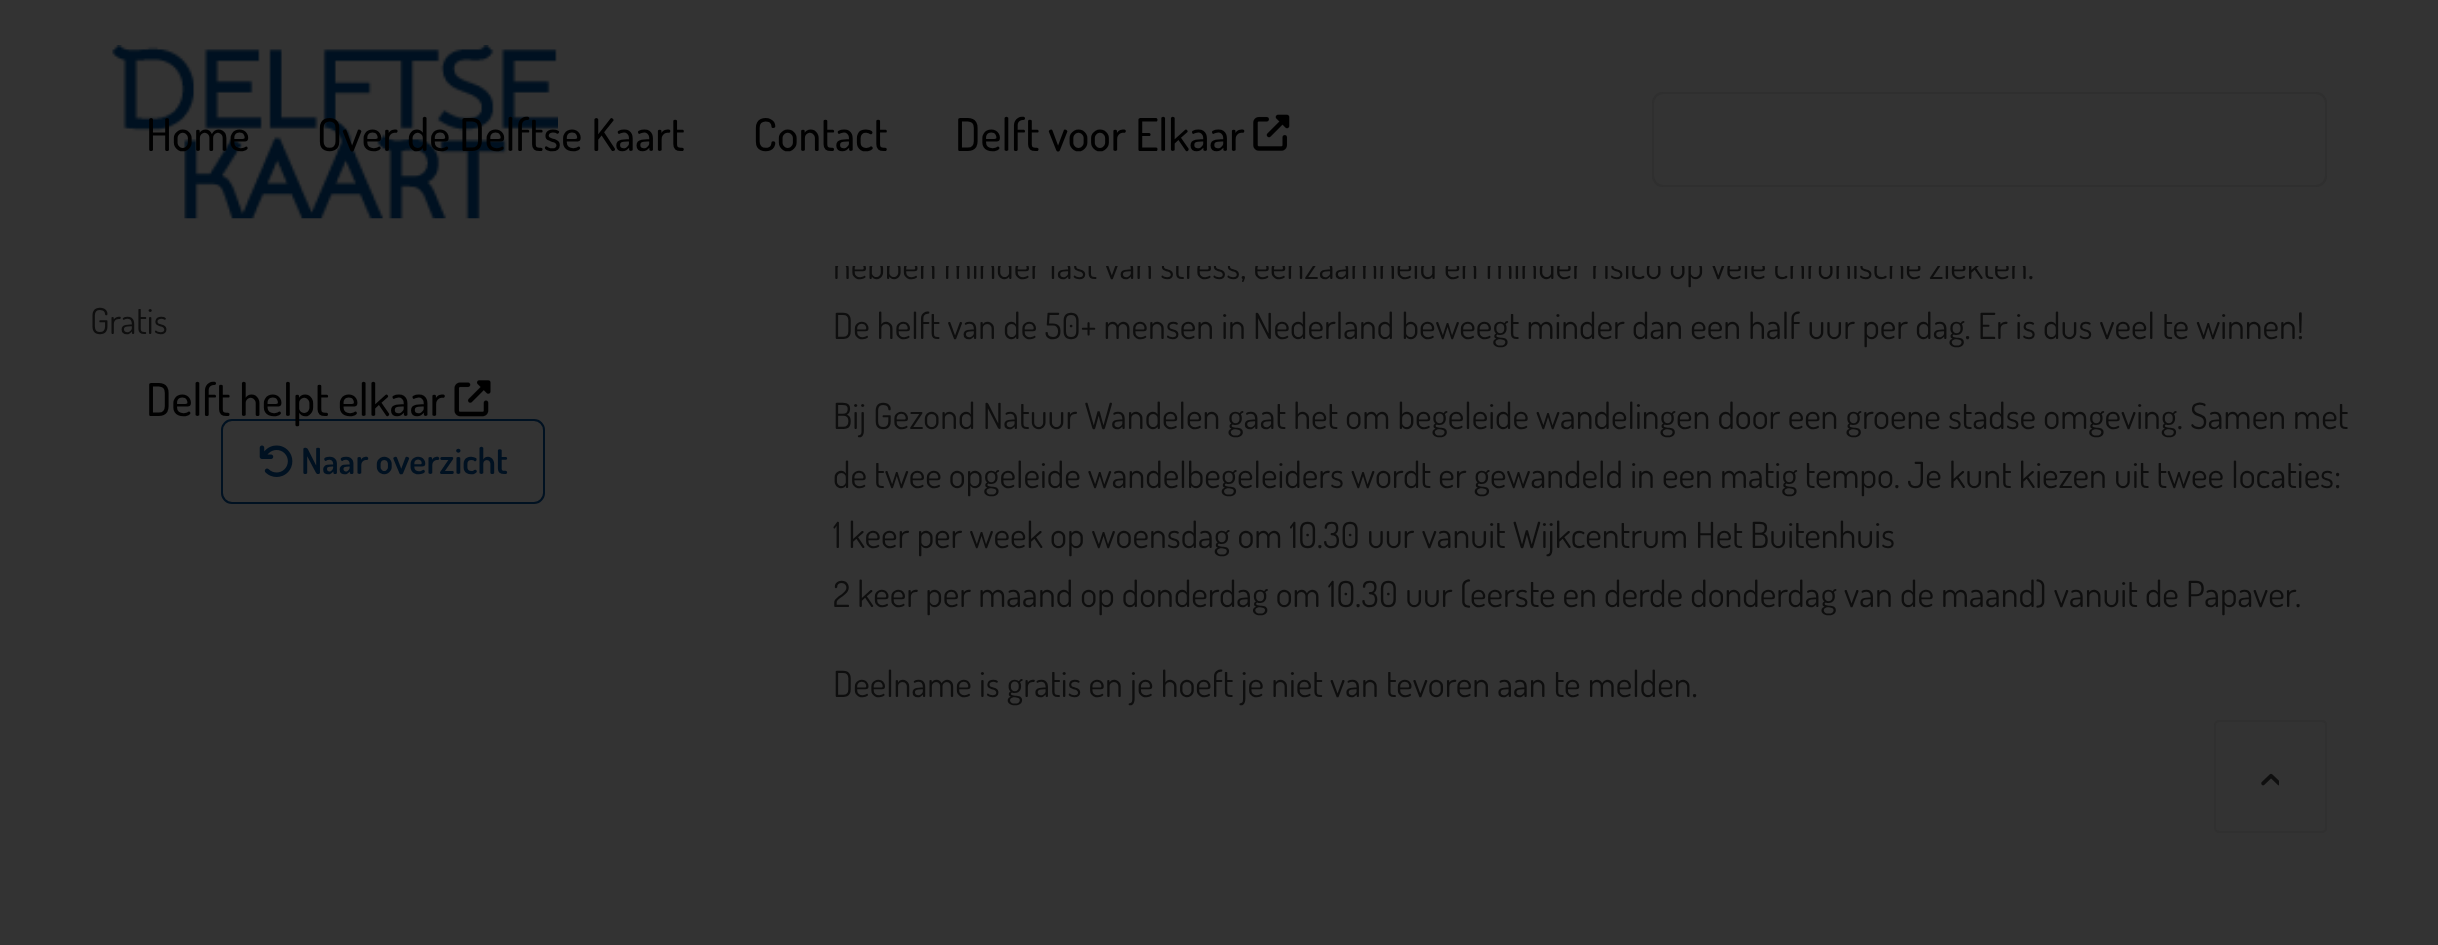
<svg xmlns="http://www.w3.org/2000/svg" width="2438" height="945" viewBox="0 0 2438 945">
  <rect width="100%" height="100%" fill="#333333"/>
  <image x="112" y="45" width="446" height="174" href="img1.png"/>
  <rect x="1653" y="93" width="673" height="93" rx="10" fill="none" stroke="#2f2f2f" stroke-width="2"/>
  <text x="146" y="151" font-family="Dosis" font-size="45" font-weight="500" fill="#000000">Home</text>
  <text x="317" y="151" font-family="Dosis" font-size="45" font-weight="500" fill="#000000">Over de Delftse Kaart</text>
  <text x="753" y="151" font-family="Dosis" font-size="45" font-weight="500" fill="#000000">Contact</text>
  <text x="955" y="151" font-family="Dosis" font-size="45" font-weight="500" fill="#000000">Delft voor Elkaar</text>
  <image x="1253" y="114" width="37" height="37" href="img2.png"/>
  <rect x="222" y="420" width="322" height="83" rx="10" fill="none" stroke="#001121" stroke-width="2"/>
  <text x="146" y="416" font-family="Dosis" font-size="45" font-weight="500" fill="#000000">Delft helpt elkaar</text>
  <image x="454" y="380" width="37" height="37" href="img3.png"/>
  <text x="833" y="279" font-family="Dosis" font-size="36" fill="#0e0e0e">hebben minder last van stress, eenzaamheid en minder risico op vele chronische ziekten.</text>
  <rect x="834" y="251" width="1191" height="15" fill="#333333"/>
  <text x="90" y="334" font-family="Dosis" font-size="36" fill="#0e0e0e">Gratis</text>
  <image x="259" y="445" width="34" height="32" href="img4.png"/>
  <text x="301" y="474" font-family="Dosis" font-size="36" font-weight="600" fill="#001121">Naar overzicht</text>
  <text x="833" y="339" font-family="Dosis" font-size="36" fill="#0e0e0e">De helft van de 50+ mensen in Nederland beweegt minder dan een half uur per dag. Er is dus veel te winnen!</text>
  <text x="833" y="429" font-family="Dosis" font-size="36" fill="#0e0e0e">Bij Gezond Natuur Wandelen gaat het om begeleide wandelingen door een groene stadse omgeving. Samen met</text>
  <text x="833" y="488" font-family="Dosis" font-size="36" fill="#0e0e0e">de twee opgeleide wandelbegeleiders wordt er gewandeld in een matig tempo. Je kunt kiezen uit twee locaties:</text>
  <text x="833" y="548" font-family="Dosis" font-size="36" fill="#0e0e0e">1 keer per week op woensdag om 10.30 uur vanuit Wijkcentrum Het Buitenhuis</text>
  <text x="833" y="607" font-family="Dosis" font-size="36" fill="#0e0e0e">2 keer per maand op donderdag om 10.30 uur (eerste en derde donderdag van de maand) vanuit de Papaver.</text>
  <text x="833" y="697" font-family="Dosis" font-size="36" fill="#0e0e0e">Deelname is gratis en je hoeft je niet van tevoren aan te melden.</text>
  <rect x="2215" y="721" width="111" height="111" rx="4" fill="none" stroke="#2f2f2f" stroke-opacity="0.7" stroke-width="2"/>
  <image x="2261" y="773" width="18" height="13" href="img5.png"/>
</svg>
